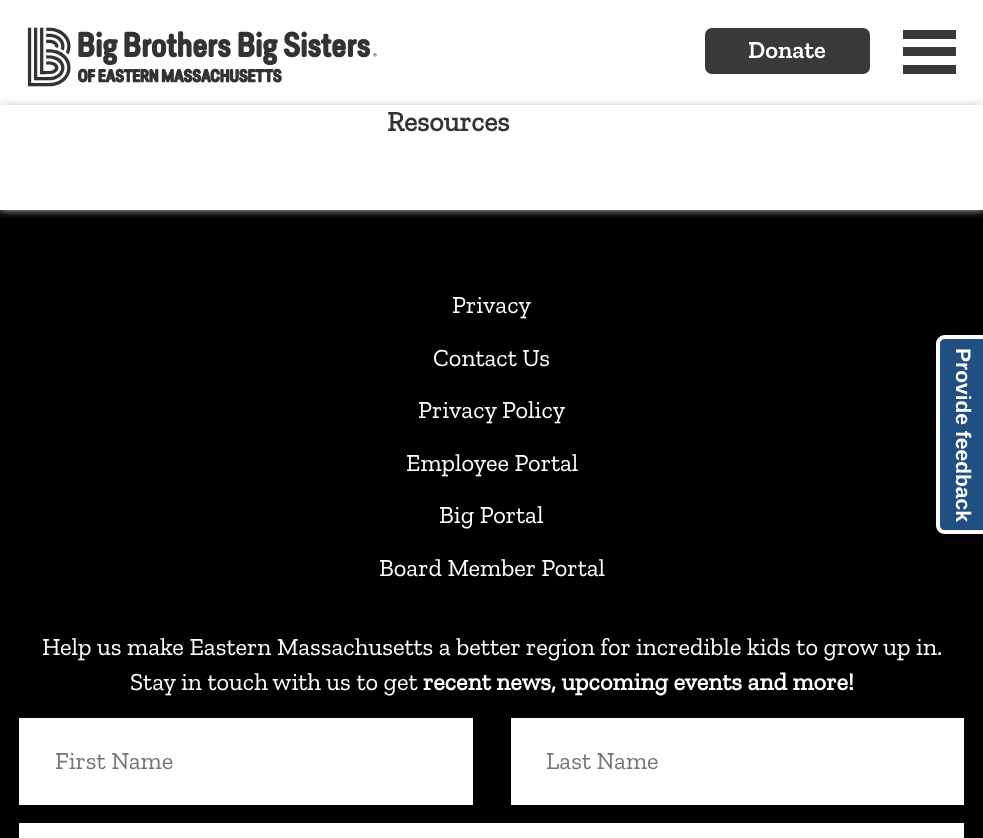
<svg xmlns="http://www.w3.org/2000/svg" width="983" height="838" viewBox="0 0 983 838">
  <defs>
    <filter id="blur1" x="-50%" y="-200%" width="200%" height="500%"><feGaussianBlur stdDeviation="4.5"/></filter>
  </defs>
  <rect width="100%" height="100%" fill="#ffffff"/>
  <image x="27" y="27" width="350" height="60" href="img1.png"/>
  <rect x="705" y="28" width="165" height="46" rx="7" fill="#393939"/>
  <text x="748" y="58" font-family="Zilla Slab" font-size="24.5" font-weight="600" fill="#ffffff">Donate</text>
  <rect x="903" y="30" width="53" height="9" fill="#393939"/>
  <rect x="903" y="47" width="53" height="9" fill="#393939"/>
  <rect x="903" y="65" width="53" height="9" fill="#393939"/>
  <rect x="0" y="210" width="983" height="628" fill="#000000"/>
  <rect x="0" y="105" width="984" height="105" fill="#cecece" filter="url(#blur1)"/>
  <rect x="0" y="105" width="983" height="105" fill="#ffffff"/>
  <text x="387" y="131" font-family="Zilla Slab" font-size="28" font-weight="bold" fill="#333333">Resources</text>
  <text x="452" y="313" font-family="Zilla Slab" font-size="24.5" fill="#ffffff">Privacy</text>
  <text x="433" y="366" font-family="Zilla Slab" font-size="24.5" fill="#ffffff">Contact Us</text>
  <text x="418" y="418" font-family="Zilla Slab" font-size="24.5" fill="#ffffff">Privacy Policy</text>
  <text x="406" y="471" font-family="Zilla Slab" font-size="24.5" fill="#ffffff">Employee Portal</text>
  <text x="439" y="523" font-family="Zilla Slab" font-size="24.5" fill="#ffffff">Big Portal</text>
  <text x="379" y="576" font-family="Zilla Slab" font-size="24.5" fill="#ffffff">Board Member Portal</text>
  <text x="42" y="655" font-family="Zilla Slab" font-size="24.5" fill="#ffffff">Help us make Eastern Massachusetts a better region for incredible kids to grow up in.</text>
  <text x="130" y="690" font-family="Zilla Slab" font-size="24.5" fill="#ffffff">Stay in touch with us to get</text>
  <text x="423" y="690" font-family="Zilla Slab" font-size="24.5" font-weight="bold" fill="#ffffff">recent news, upcoming events and more!</text>
  <rect x="19" y="718" width="454" height="87" fill="#ffffff"/>
  <text x="55" y="769" font-family="Zilla Slab" font-size="24.5" fill="#757575">First Name</text>
  <rect x="511" y="718" width="453" height="87" fill="#ffffff"/>
  <text x="546" y="769" font-family="Zilla Slab" font-size="24.5" fill="#757575">Last Name</text>
  <rect x="19" y="823" width="945" height="15" fill="#ffffff"/>
  <path d="M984 335V534H945C940 534 936 530 936 525V344C936 339 940 335 945 335Z" fill="#205081"/>
  <path d="M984 335V534H945C940 534 936 530 936 525V344C936 339 940 335 945 335ZM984 339V530H945C942 530 940 528 940 525V344C940 341 942 339 945 339Z" fill="#ffffff" fill-rule="evenodd"/>
  <text x="956" y="348" transform="rotate(90 956 348)" font-family="Liberation Sans" font-size="21" font-weight="bold" fill="#ffffff">Provide feedback</text>
</svg>
